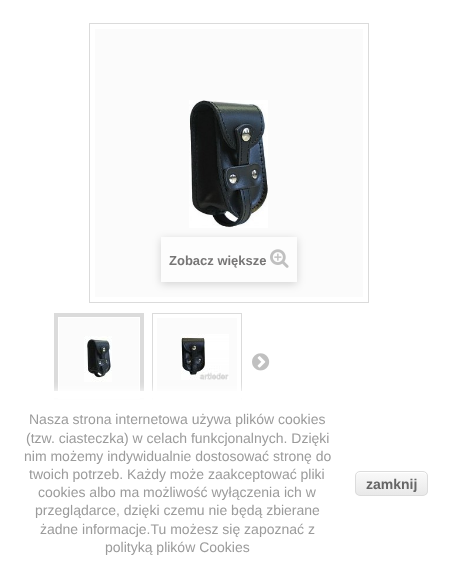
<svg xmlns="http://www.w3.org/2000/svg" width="458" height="575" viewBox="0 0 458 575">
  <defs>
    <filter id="blur1" x="-50%" y="-200%" width="200%" height="500%"><feGaussianBlur stdDeviation="4"/></filter>
    <filter id="blur2" x="-50%" y="-200%" width="200%" height="500%"><feGaussianBlur stdDeviation="5"/></filter>
    <clipPath id="clip1"><rect x="355" y="471" width="73" height="25" rx="5"/></clipPath>
    <linearGradient id="g1" gradientUnits="userSpaceOnUse" x1="356" y1="472" x2="356" y2="495"><stop offset="0.05" stop-color="#f9f9f9"/><stop offset="1" stop-color="#e9e9e9"/></linearGradient>
  </defs>
  <rect width="100%" height="100%" fill="#ffffff"/>
  <rect x="89.5" y="23.5" width="279" height="279" fill="none" stroke="#dbdbdb"/>
  <rect x="95" y="29" width="268" height="268" fill="#fbfbfb"/>
  <image x="189" y="100" width="79" height="128" href="img1.png"/>
  <rect x="161" y="239" width="136" height="45" fill="#000000" fill-opacity="0.16" filter="url(#blur1)"/>
  <rect x="161" y="237" width="136" height="45" fill="#fdfdfd"/>
  <text x="169" y="265" font-family="Liberation Sans" font-size="13" font-weight="bold" fill="#777676">Zobacz większe</text>
  <image x="270" y="249" width="19" height="19" href="img2.png"/>
  <rect x="54.5" y="313.5" width="89" height="89" fill="none" stroke="#dbdbdb"/>
  <rect x="59" y="318" width="80" height="73" fill="#fbfbfb"/>
  <rect x="56.5" y="315.5" width="85" height="85" fill="none" stroke="#dbdbdb" stroke-width="3"/>
  <image x="84" y="336" width="28" height="46" href="img3.png"/>
  <rect x="152.5" y="313.5" width="89" height="89" fill="none" stroke="#dbdbdb"/>
  <rect x="157" y="318" width="80" height="73" fill="#fbfbfb"/>
  <image x="181" y="334" width="48" height="46" href="img4.png"/>
  <image x="252" y="353" width="18" height="18" href="img5.png"/>
  <rect x="0" y="391" width="458" height="184" fill="#ffffff" filter="url(#blur2)"/>
  <rect x="54" y="391" width="188" height="7" fill="#ffffff"/>
  <text x="29" y="424" font-family="Liberation Sans" font-size="14" fill="#9b9b9b">Nasza strona internetowa używa plików cookies</text>
  <text x="26" y="443" font-family="Liberation Sans" font-size="14" fill="#9b9b9b">(tzw. ciasteczka) w celach funkcjonalnych. Dzięki</text>
  <text x="24" y="461" font-family="Liberation Sans" font-size="14" fill="#9b9b9b">nim możemy indywidualnie dostosować stronę do</text>
  <text x="29" y="479" font-family="Liberation Sans" font-size="14" fill="#9b9b9b">twoich potrzeb. Każdy może zaakceptować pliki</text>
  <text x="38" y="497" font-family="Liberation Sans" font-size="14" fill="#9b9b9b">cookies albo ma możliwość wyłączenia ich w</text>
  <text x="35" y="515" font-family="Liberation Sans" font-size="14" fill="#9b9b9b">przeglądarce, dzięki czemu nie będą zbierane</text>
  <text x="40" y="534" font-family="Liberation Sans" font-size="14" fill="#9b9b9b">żadne informacje.Tu możesz się zapoznać z</text>
  <text x="105" y="552" font-family="Liberation Sans" font-size="14" fill="#9b9b9b">polityką plików Cookies</text>
  <g clip-path="url(#clip1)">
    <rect x="355" y="472" width="73" height="23" fill="url(#g1)"/>
  </g>
  <path d="M360 473H423C425 473 427 475 427 477C427 469 418 472 412 472H370C365 472 356 469 356 477C356 475 358 473 360 473Z" fill="#ffffff"/>
  <rect x="355.5" y="471.5" width="72" height="24" rx="4.5" fill="none" stroke="#dcdcdc"/>
  <text x="366" y="489" font-family="Liberation Sans" font-size="14" font-weight="bold" fill="#666666">zamknij</text>
</svg>
